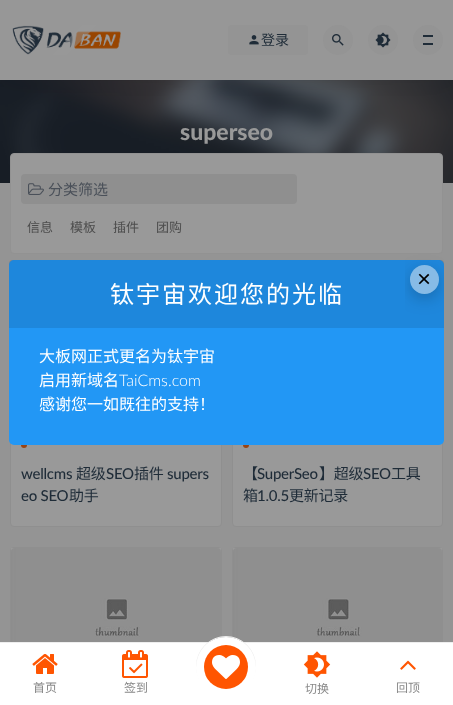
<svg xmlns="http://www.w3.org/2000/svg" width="453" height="705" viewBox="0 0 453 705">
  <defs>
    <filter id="blur1" x="-50%" y="-200%" width="200%" height="500%"><feGaussianBlur stdDeviation="15"/></filter>
    <clipPath id="clip1"><rect x="10" y="25" width="132" height="30"/></clipPath>
    <clipPath id="clip2"><path d="M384 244H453V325H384ZM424.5 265C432.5 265 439 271.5 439 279.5C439 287.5 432.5 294 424.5 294C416.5 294 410 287.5 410 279.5C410 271.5 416.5 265 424.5 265Z" clip-rule="evenodd"/></clipPath>
    <filter id="blur2" x="-50%" y="-200%" width="200%" height="500%"><feGaussianBlur stdDeviation="10"/></filter>
  </defs>
  <rect width="100%" height="100%" fill="#949494"/>
  <image x="0" y="80" width="453" height="103" href="img5.png"/>
  <rect x="0" y="0" width="453" height="80" fill="#000000" fill-opacity="0.07" filter="url(#blur1)"/>
  <rect x="0" y="0" width="453" height="80" fill="#979797"/>
  <image x="12" y="25" width="109" height="30" href="img1.png"/>
  <g clip-path="url(#clip1)">
    <path d="M28 79L134-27L142-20L36 86Z" fill="#999999" fill-opacity="0.5"/>
  </g>
  <rect x="228" y="25" width="80" height="30" rx="4" fill="#949494"/>
  <image x="249" y="35" width="10" height="10" href="img2.png"/>
  <text x="261" y="45" font-family="Noto Sans CJK SC" font-size="14" fill="#1f2c38">登录</text>
  <circle cx="338" cy="40" r="15" fill="#949494"/>
  <image x="332" y="34" width="12" height="12" href="img3.png"/>
  <circle cx="383" cy="40" r="15" fill="#949494"/>
  <image x="375" y="32" width="16" height="16" href="img4.png"/>
  <circle cx="428" cy="40" r="15" fill="#949494"/>
  <rect x="423" y="35" width="10" height="2" fill="#1f2c38"/>
  <rect x="423" y="43" width="10" height="2" fill="#1f2c38"/>
  <text x="180" y="140" font-family="Lato" font-size="23" font-weight="900" fill="#999999">superseo</text>
  <rect x="10.5" y="153.5" width="432" height="100" rx="3.5" fill="#999999" stroke="#929292"/>
  <rect x="21" y="174" width="276" height="30" rx="4" fill="#8f8f8f"/>
  <image x="28" y="183" width="16" height="12" href="img6.png"/>
  <text x="48" y="195" font-family="Noto Sans CJK SC" font-size="15" fill="#4a5059">分类筛选</text>
  <text x="27" y="232" font-family="Noto Sans CJK SC" font-size="13" fill="#4d4d4d">信息</text>
  <text x="70" y="232" font-family="Noto Sans CJK SC" font-size="13" fill="#4d4d4d">模板</text>
  <text x="113" y="232" font-family="Noto Sans CJK SC" font-size="13" fill="#4d4d4d">插件</text>
  <text x="156" y="232" font-family="Noto Sans CJK SC" font-size="13" fill="#4d4d4d">团购</text>
  <rect x="10.5" y="284.5" width="211" height="242" rx="3.5" fill="#999999" stroke="#8f8f8f"/>
  <circle cx="24" cy="445" r="3" fill="#984413"/>
  <text x="21" y="479" font-family="Lato" font-size="15" font-weight="500" letter-spacing="-0.25" fill="#1f2c38">wellcms</text>
  <text x="76" y="479" font-family="Noto Sans CJK SC" font-size="15" letter-spacing="-0.25" fill="#1f2c38">超级</text>
  <text x="106" y="479" font-family="Lato" font-size="15" font-weight="500" letter-spacing="-0.25" fill="#1f2c38">SEO</text>
  <text x="134" y="479" font-family="Noto Sans CJK SC" font-size="15" letter-spacing="-0.25" fill="#1f2c38">插件</text>
  <text x="167" y="479" font-family="Lato" font-size="15" font-weight="500" letter-spacing="-0.25" fill="#1f2c38">supers</text>
  <text x="21" y="501" font-family="Lato" font-size="15" font-weight="500" letter-spacing="-0.25" fill="#1f2c38">eo SEO</text>
  <text x="69" y="501" font-family="Noto Sans CJK SC" font-size="15" letter-spacing="-0.25" fill="#1f2c38">助手</text>
  <rect x="232.5" y="284.5" width="210" height="242" rx="3.5" fill="#999999" stroke="#8f8f8f"/>
  <circle cx="246" cy="445" r="3" fill="#984413"/>
  <text x="243" y="479" font-family="Noto Sans CJK SC" font-size="15" letter-spacing="-0.25" fill="#1f2c38">【</text>
  <text x="257" y="479" font-family="Lato" font-size="15" font-weight="500" letter-spacing="-0.25" fill="#1f2c38">SuperSeo</text>
  <text x="319" y="479" font-family="Noto Sans CJK SC" font-size="15" letter-spacing="-0.25" fill="#1f2c38">】超级</text>
  <text x="363" y="479" font-family="Lato" font-size="15" font-weight="500" letter-spacing="-0.25" fill="#1f2c38">SEO</text>
  <text x="391" y="479" font-family="Noto Sans CJK SC" font-size="15" letter-spacing="-0.25" fill="#1f2c38">工具</text>
  <text x="243" y="501" font-family="Noto Sans CJK SC" font-size="15" letter-spacing="-0.25" fill="#1f2c38">箱</text>
  <text x="257" y="501" font-family="Lato" font-size="15" font-weight="500" letter-spacing="-0.25" fill="#1f2c38">1.0.5</text>
  <text x="289" y="501" font-family="Noto Sans CJK SC" font-size="15" letter-spacing="-0.25" fill="#1f2c38">更新记录</text>
  <rect x="10.5" y="547.5" width="211" height="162" rx="3.5" fill="none" stroke="#8f8f8f"/>
  <rect x="11" y="548" width="210" height="4" fill="#999999"/>
  <image x="11" y="548" width="210" height="94" href="img7.png"/>
  <rect x="232.5" y="547.5" width="210" height="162" rx="3.5" fill="none" stroke="#8f8f8f"/>
  <rect x="233" y="548" width="209" height="4" fill="#999999"/>
  <image x="233" y="548" width="209" height="94" href="img8.png"/>
  <rect x="0" y="643" width="453" height="62" fill="#ffffff"/>
  <rect x="0" y="642" width="453" height="1" fill="#eeeeee"/>
  <image x="32" y="654" width="26" height="20" href="img9.png"/>
  <text x="33" y="692" font-family="Noto Sans CJK SC" font-size="12" fill="#888888">首页</text>
  <image x="122" y="650" width="26" height="28" href="img10.png"/>
  <text x="124" y="692" font-family="Noto Sans CJK SC" font-size="12" fill="#888888">签到</text>
  <circle cx="226" cy="666" r="29.5" fill="none" stroke="#efefef"/>
  <ellipse cx="226" cy="668" rx="30" ry="31" fill="#ffffff"/>
  <circle cx="226" cy="667" r="22" fill="#ff5501"/>
  <image x="212" y="655" width="28" height="24" href="img11.png"/>
  <image x="303" y="651" width="28" height="27" href="img12.png"/>
  <text x="305" y="693" font-family="Noto Sans CJK SC" font-size="12" fill="#888888">切换</text>
  <image x="400" y="660" width="16" height="10" href="img13.png"/>
  <text x="396" y="692" font-family="Noto Sans CJK SC" font-size="12" fill="#888888">回顶</text>
  <rect x="9" y="260" width="435" height="185" rx="5" fill="#2297f5"/>
  <path d="M12 260H441C442.5 260 444 261.5 444 263V328H9V263C9 261.5 10.5 260 12 260Z" fill="#000000" fill-opacity="0.1"/>
  <g clip-path="url(#clip2)">
    <rect x="415" y="275" width="19" height="19" rx="9.5" fill="#000000" fill-opacity="0.5" filter="url(#blur2)"/>
  </g>
  <circle cx="424.5" cy="279.5" r="14.5" fill="#efefef" fill-opacity="0.5"/>
  <text x="417" y="287" font-family="Liberation Sans" font-size="24" fill="#000000">×</text>
  <text x="110" y="303" font-family="Noto Sans CJK SC" font-size="24" letter-spacing="2" fill="#ffffff">钛宇宙欢迎您的光临</text>
  <text x="39" y="362" font-family="Noto Sans CJK SC" font-size="16" fill="#ffffff">大板网正式更名为钛宇宙</text>
  <text x="39" y="386" font-family="Noto Sans CJK SC" font-size="16" fill="#ffffff">启用新域名</text>
  <text x="119" y="386" font-family="Lato" font-size="16" font-weight="300" fill="#ffffff">TaiCms.com</text>
  <text x="39" y="410" font-family="Noto Sans CJK SC" font-size="16" fill="#ffffff">感谢您一如既往的支持！</text>
</svg>
